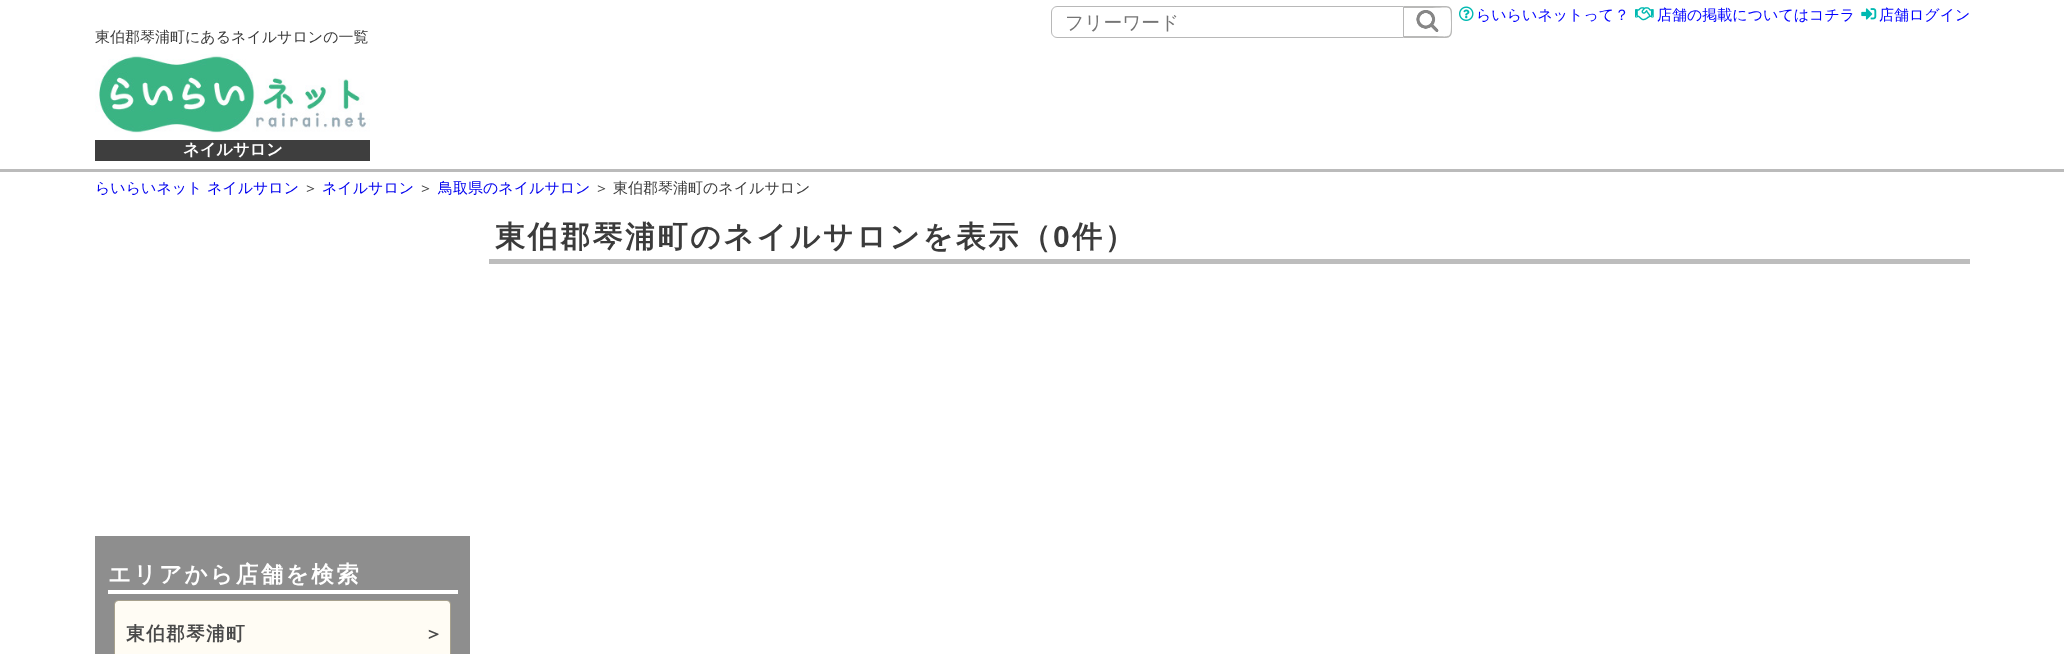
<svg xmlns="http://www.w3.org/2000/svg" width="2064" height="654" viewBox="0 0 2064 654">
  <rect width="100%" height="100%" fill="#ffffff"/>
  <rect x="0" y="169" width="2064" height="3" fill="#bbbbbb"/>
  <path d="M1057 6.5H1403.5V37.5H1057C1054 37.5 1051.5 35 1051.5 32V12C1051.5 9 1054 6.5 1057 6.5Z" fill="none" stroke="#b8b8b8"/>
  <text x="1065" y="29" font-family="WenQuanYi Zen Hei" font-size="18.75" font-weight="500" fill="#757575">フリーワード</text>
  <image x="1416" y="10" width="23" height="22" href="img1.png"/>
  <path d="M1404 6H1446C1450 6 1452 9 1452 12V31C1452 35 1450 38 1446 38H1404ZM1404 8H1432C1451 8 1451 4 1451 22C1451 40 1451 36 1432 36H1404Z" fill="#b9b9b8" fill-rule="evenodd"/>
  <image x="1459" y="6" width="15" height="15" href="img2.png"/>
  <text x="1476" y="20" font-family="WenQuanYi Zen Hei" font-size="15" font-weight="500" fill="#0000ff">らいらいネットって？</text>
  <image x="1635" y="7" width="19" height="14" href="img3.png"/>
  <text x="1657" y="20" font-family="WenQuanYi Zen Hei" font-size="15" font-weight="500" fill="#0000ff">店舗の掲載についてはコチラ</text>
  <image x="1861" y="8" width="16" height="12" href="img4.png"/>
  <text x="1879" y="20" font-family="WenQuanYi Zen Hei" font-size="15" font-weight="500" fill="#0000ff">店舗ログイン</text>
  <text x="95" y="42" font-family="WenQuanYi Zen Hei" font-size="15" font-weight="500" fill="#3b3b3b">東伯郡琴浦町にあるネイルサロンの一覧</text>
  <image x="95" y="54" width="275" height="79" href="img5.png"/>
  <rect x="95" y="140" width="275" height="21" fill="#3e3e3e"/>
  <text x="183" y="155" font-family="WenQuanYi Zen Hei" font-size="16.25" font-weight="bold" fill="#ffffff">ネイルサロン</text>
  <text x="95" y="193" font-family="WenQuanYi Zen Hei" font-size="15" font-weight="500" fill="#0000ee">らいらいネット ネイルサロン</text>
  <text x="303" y="193" font-family="WenQuanYi Zen Hei" font-size="15" font-weight="500" fill="#3b3b3b">＞</text>
  <text x="322" y="193" font-family="WenQuanYi Zen Hei" font-size="15" font-weight="500" fill="#0000ee">ネイルサロン</text>
  <text x="418" y="193" font-family="WenQuanYi Zen Hei" font-size="15" font-weight="500" fill="#3b3b3b">＞</text>
  <text x="438" y="193" font-family="WenQuanYi Zen Hei" font-size="15" font-weight="500" fill="#0000ee">鳥取県のネイルサロン</text>
  <text x="594" y="193" font-family="WenQuanYi Zen Hei" font-size="15" font-weight="500" fill="#3b3b3b">＞</text>
  <text x="613" y="193" font-family="WenQuanYi Zen Hei" font-size="15" font-weight="500" fill="#3b3b3b">東伯郡琴浦町のネイルサロン</text>
  <rect x="489" y="259" width="1481" height="5" fill="#bdbdbd"/>
  <text x="495" y="247" font-family="WenQuanYi Zen Hei" font-size="30" font-weight="bold" letter-spacing="2.5" fill="#3b3b3b">東伯郡琴浦町のネイルサロンを表示（</text>
  <text x="1053" y="247" font-family="Liberation Sans" font-size="30" font-weight="bold" letter-spacing="2.5" fill="#3b3b3b">0</text>
  <text x="1072" y="247" font-family="WenQuanYi Zen Hei" font-size="30" font-weight="bold" letter-spacing="2.5" fill="#3b3b3b">件）</text>
  <rect x="95" y="536" width="375" height="118" fill="#8e8e8e"/>
  <rect x="108" y="590" width="350" height="4" fill="#ffffff"/>
  <text x="108" y="582" font-family="WenQuanYi Zen Hei" font-size="22.5" font-weight="bold" letter-spacing="2.5" fill="#ffffff">エリアから店舗を検索</text>
  <path d="M118 601H448C449 601 450 602 450 604V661C450 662 449 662 448 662H118C116 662 115 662 115 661V604C115 602 116 601 118 601Z" fill="#fffcf4"/>
  <rect x="114.5" y="600.5" width="336" height="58" rx="3.5" fill="none" stroke="#a7a18d"/>
  <text x="126" y="640" font-family="WenQuanYi Zen Hei" font-size="18.75" font-weight="bold" letter-spacing="1.25" fill="#4a4a4a">東伯郡琴浦町</text>
  <text x="424" y="640" font-family="WenQuanYi Zen Hei" font-size="18.75" font-weight="bold" letter-spacing="1.25" fill="#4a4a4a">＞</text>
</svg>
